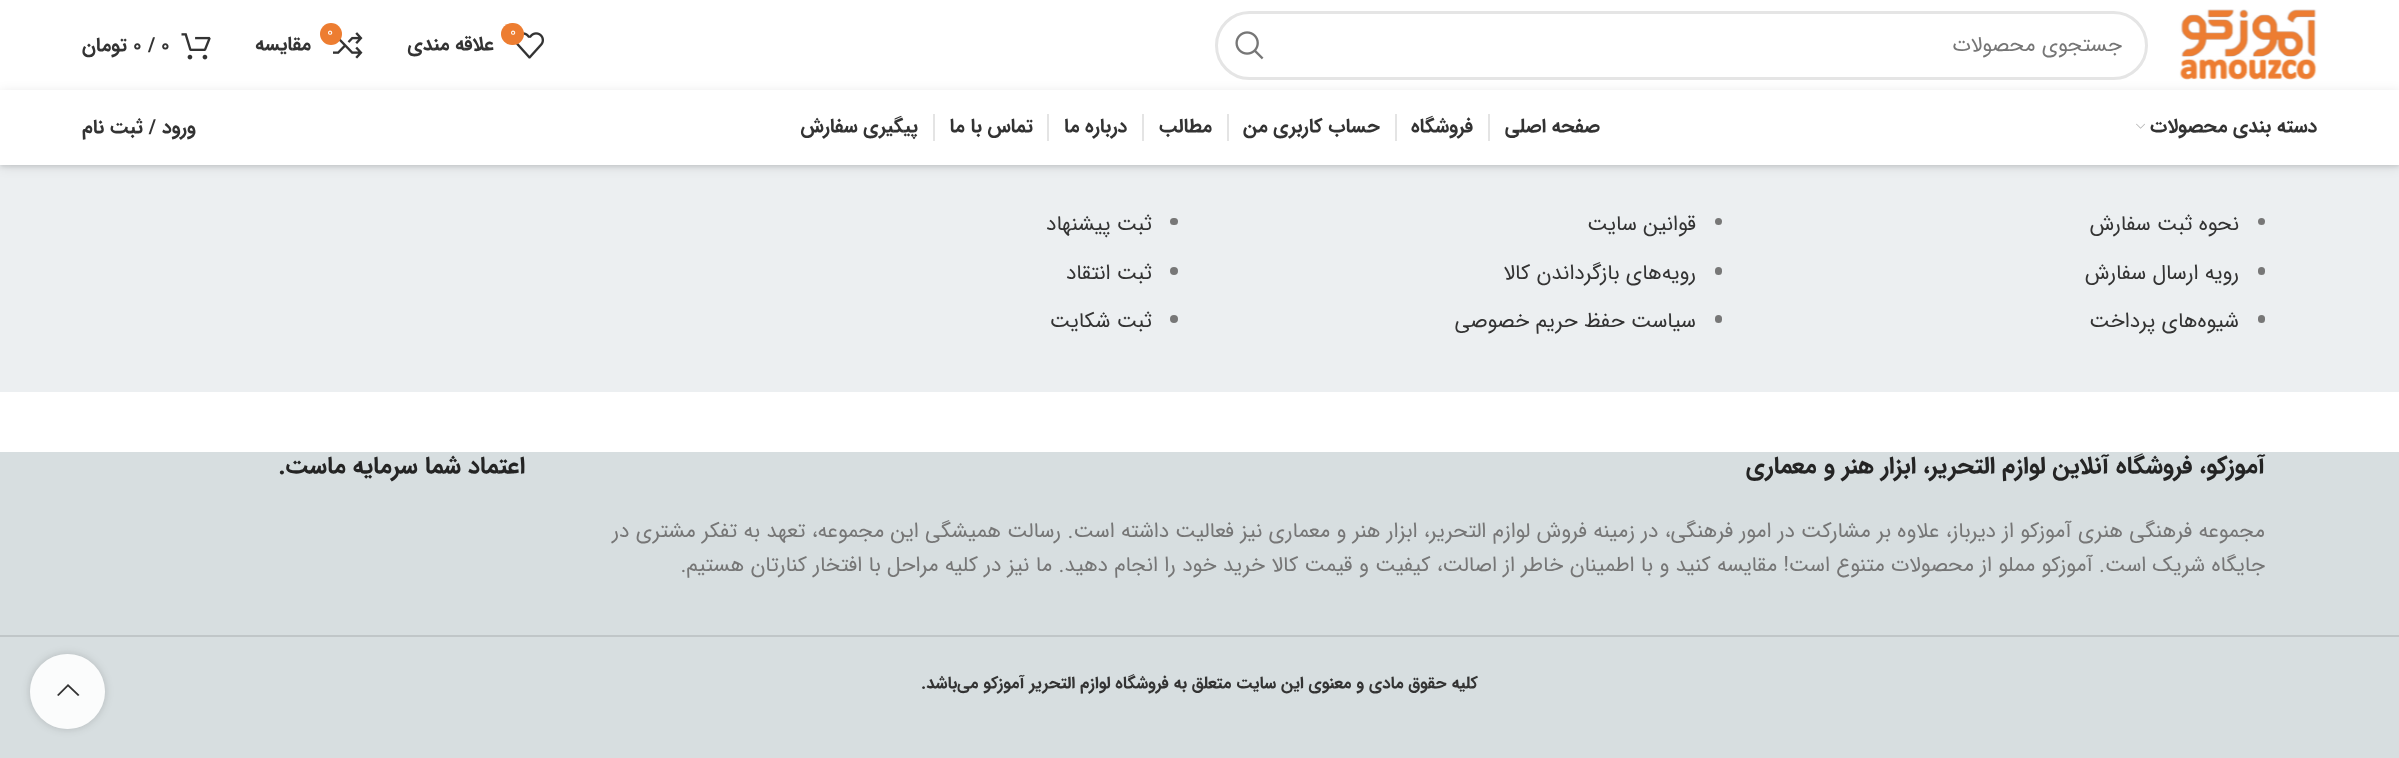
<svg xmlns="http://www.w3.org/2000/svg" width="2399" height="758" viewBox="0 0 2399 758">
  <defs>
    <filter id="blur1" x="-50%" y="-200%" width="200%" height="500%"><feGaussianBlur stdDeviation="2"/></filter>
    <filter id="blur2" x="-50%" y="-200%" width="200%" height="500%"><feGaussianBlur stdDeviation="6"/></filter>
    <clipPath id="clip1"><path d="M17 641H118V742H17ZM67.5 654C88 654 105 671 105 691.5C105 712 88 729 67.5 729C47 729 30 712 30 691.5C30 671 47 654 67.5 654Z" clip-rule="evenodd"/></clipPath>
    <filter id="blur3" x="-50%" y="-200%" width="200%" height="500%"><feGaussianBlur stdDeviation="4"/></filter>
  </defs>
  <rect width="100%" height="100%" fill="#ffffff"/>
  <rect x="0" y="165" width="2399" height="227" fill="#eceff1"/>
  <rect x="0" y="2" width="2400" height="165" fill="#000000" fill-opacity="0.1" filter="url(#blur1)"/>
  <rect x="0" y="0" width="2399" height="90" fill="#ffffff"/>
  <rect x="0" y="92" width="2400" height="75" fill="#000000" fill-opacity="0.1" filter="url(#blur2)"/>
  <image x="2179" y="9" width="138" height="71" href="img1.png"/>
  <rect x="1216.5" y="12.5" width="930" height="66" rx="33" fill="none" stroke="#e5e5e5" stroke-width="3"/>
  <text x="2122" y="51" font-family="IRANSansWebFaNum" font-size="21" direction="rtl" fill="#767676">جستجوی محصولات</text>
  <image x="1235" y="31" width="29" height="29" href="img2.png"/>
  <image x="516" y="32" width="28" height="27" href="img3.png"/>
  <rect x="501" y="23" width="23" height="22" rx="11" fill="#ed7d31"/>
  <text x="510" y="36" font-family="IRANSansWebFaNum" font-size="14" fill="#ffffff">0</text>
  <text x="494" y="50" font-family="IRANSansWebFaNum" font-size="19.5" font-weight="bold" direction="rtl" fill="#333333">علاقه مندی</text>
  <image x="333" y="32" width="30" height="27" href="img4.png"/>
  <circle cx="331" cy="34" r="11" fill="#ed7d31"/>
  <text x="327" y="36" font-family="IRANSansWebFaNum" font-size="14" fill="#ffffff">0</text>
  <text x="311" y="50" font-family="IRANSansWebFaNum" font-size="19.5" font-weight="bold" direction="rtl" fill="#333333">مقایسه</text>
  <image x="181" y="33" width="30" height="27" href="img5.png"/>
  <text x="161" y="51" font-family="IRANSansWebFaNum" font-size="19.5" font-weight="bold" fill="#333333">0</text>
  <text x="148" y="51" font-family="IRANSansWebFaNum" font-size="19.5" font-weight="bold" fill="#333333">/</text>
  <text x="133" y="51" font-family="IRANSansWebFaNum" font-size="19.5" font-weight="bold" fill="#333333">0</text>
  <text x="127" y="51" font-family="IRANSansWebFaNum" font-size="19.5" font-weight="bold" direction="rtl" fill="#333333">تومان</text>
  <rect x="0" y="90" width="2399" height="75" fill="#ffffff"/>
  <text x="2317" y="132" font-family="IRANSansWebFaNum" font-size="19.5" font-weight="bold" direction="rtl" fill="#333333">دسته بندی محصولات</text>
  <image x="2136" y="123" width="9" height="6" href="img6.png"/>
  <text x="1600" y="132" font-family="IRANSansWebFaNum" font-size="19.5" font-weight="bold" direction="rtl" fill="#333333">صفحه اصلی</text>
  <rect x="1488" y="114" width="2" height="27" fill="#e4e4e4"/>
  <text x="1473" y="132" font-family="IRANSansWebFaNum" font-size="19.5" font-weight="bold" direction="rtl" fill="#333333">فروشگاه</text>
  <rect x="1395" y="114" width="2" height="27" fill="#e4e4e4"/>
  <text x="1380" y="132" font-family="IRANSansWebFaNum" font-size="19.5" font-weight="bold" direction="rtl" fill="#333333">حساب کاربری من</text>
  <rect x="1227" y="114" width="2" height="27" fill="#e4e4e4"/>
  <text x="1212" y="132" font-family="IRANSansWebFaNum" font-size="19.5" font-weight="bold" direction="rtl" fill="#333333">مطالب</text>
  <rect x="1142" y="114" width="2" height="27" fill="#e4e4e4"/>
  <text x="1127" y="132" font-family="IRANSansWebFaNum" font-size="19.5" font-weight="bold" direction="rtl" fill="#333333">درباره ما</text>
  <rect x="1047" y="114" width="2" height="27" fill="#e4e4e4"/>
  <text x="1033" y="132" font-family="IRANSansWebFaNum" font-size="19.5" font-weight="bold" direction="rtl" fill="#333333">تماس با ما</text>
  <rect x="933" y="114" width="2" height="27" fill="#e4e4e4"/>
  <text x="918" y="132" font-family="IRANSansWebFaNum" font-size="19.5" font-weight="bold" direction="rtl" fill="#333333">پیگیری سفارش</text>
  <text x="196" y="133" font-family="IRANSansWebFaNum" font-size="19.5" font-weight="bold" direction="rtl" fill="#333333">ورود / ثبت نام</text>
  <circle cx="2261.5" cy="221.5" r="3.5" fill="#777777"/>
  <text x="2239" y="230" font-family="IRANSansWebFaNum" font-size="21" direction="rtl" fill="#333333">نحوه ثبت سفارش</text>
  <rect x="2258" y="267" width="7" height="8" rx="3.5" fill="#777777"/>
  <text x="2239" y="279" font-family="IRANSansWebFaNum" font-size="21" direction="rtl" fill="#333333">رویه ارسال سفارش</text>
  <rect x="2258" y="315" width="7" height="8" rx="3.5" fill="#777777"/>
  <text x="2239" y="327" font-family="IRANSansWebFaNum" font-size="21" direction="rtl" fill="#333333">شیوه‌های پرداخت</text>
  <circle cx="1718.5" cy="221.5" r="3.5" fill="#777777"/>
  <text x="1696" y="230" font-family="IRANSansWebFaNum" font-size="21" direction="rtl" fill="#333333">قوانین سایت</text>
  <rect x="1715" y="267" width="7" height="8" rx="3.5" fill="#777777"/>
  <text x="1696" y="279" font-family="IRANSansWebFaNum" font-size="21" direction="rtl" fill="#333333">رویه‌های بازگرداندن کالا</text>
  <rect x="1715" y="315" width="7" height="8" rx="3.5" fill="#777777"/>
  <text x="1696" y="327" font-family="IRANSansWebFaNum" font-size="21" direction="rtl" fill="#333333">سیاست حفظ حریم خصوصی</text>
  <rect x="1170" y="218" width="8" height="7" rx="3.5" fill="#777777"/>
  <text x="1152" y="230" font-family="IRANSansWebFaNum" font-size="21" direction="rtl" fill="#333333">ثبت پیشنهاد</text>
  <circle cx="1174" cy="271" r="4" fill="#777777"/>
  <text x="1152" y="279" font-family="IRANSansWebFaNum" font-size="21" direction="rtl" fill="#333333">ثبت انتقاد</text>
  <circle cx="1174" cy="319" r="4" fill="#777777"/>
  <text x="1152" y="327" font-family="IRANSansWebFaNum" font-size="21" direction="rtl" fill="#333333">ثبت شکایت</text>
  <rect x="0" y="452" width="2399" height="306" fill="#d7dee0"/>
  <text x="2265" y="473" font-family="IRANSansWebFaNum" font-size="24" font-weight="bold" direction="rtl" fill="#242424">آموزکو، فروشگاه آنلاین لوازم التحریر، ابزار هنر و معماری</text>
  <text x="2265" y="537" font-family="IRANSansWebFaNum" font-size="21" direction="rtl" fill="#767676">مجموعه فرهنگی هنری آموزکو از دیرباز، علاوه بر مشارکت در امور فرهنگی، در زمینه فروش لوازم التحریر، ابزار هنر و معماری نیز فعالیت داشته است. رسالت همیشگی این مجموعه، تعهد به تفکر مشتری در</text>
  <text x="2265" y="571" font-family="IRANSansWebFaNum" font-size="21" direction="rtl" fill="#767676">جایگاه شریک است. آموزکو مملو از محصولات متنوع است! مقایسه کنید و با اطمینان خاطر از اصالت، کیفیت و قیمت کالا خرید خود را انجام دهید. ما نیز در کلیه مراحل با افتخار کنارتان هستیم.</text>
  <text x="525" y="473" font-family="IRANSansWebFaNum" font-size="24" font-weight="bold" direction="rtl" fill="#242424">اعتماد شما سرمایه ماست.</text>
  <rect x="0" y="635" width="2399" height="2" fill="#c0c6c8"/>
  <text x="1478" y="688" font-family="IRANSansWebFaNum" font-size="16.8" font-weight="bold" direction="rtl" fill="#333333">کلیه حقوق مادی و معنوی این سایت متعلق به فروشگاه لوازم التحریر آموزکو می‌باشد.</text>
  <g clip-path="url(#clip1)">
    <rect x="30" y="654" width="75" height="75" rx="37.5" fill="#000000" fill-opacity="0.17" filter="url(#blur3)"/>
  </g>
  <circle cx="67.5" cy="691.5" r="37.5" fill="#ffffff" fill-opacity="0.9"/>
  <path d="M78 696L79.5 695L68 684L57 695L58.5 696L68 686.5Z" fill="#333333"/>
</svg>
